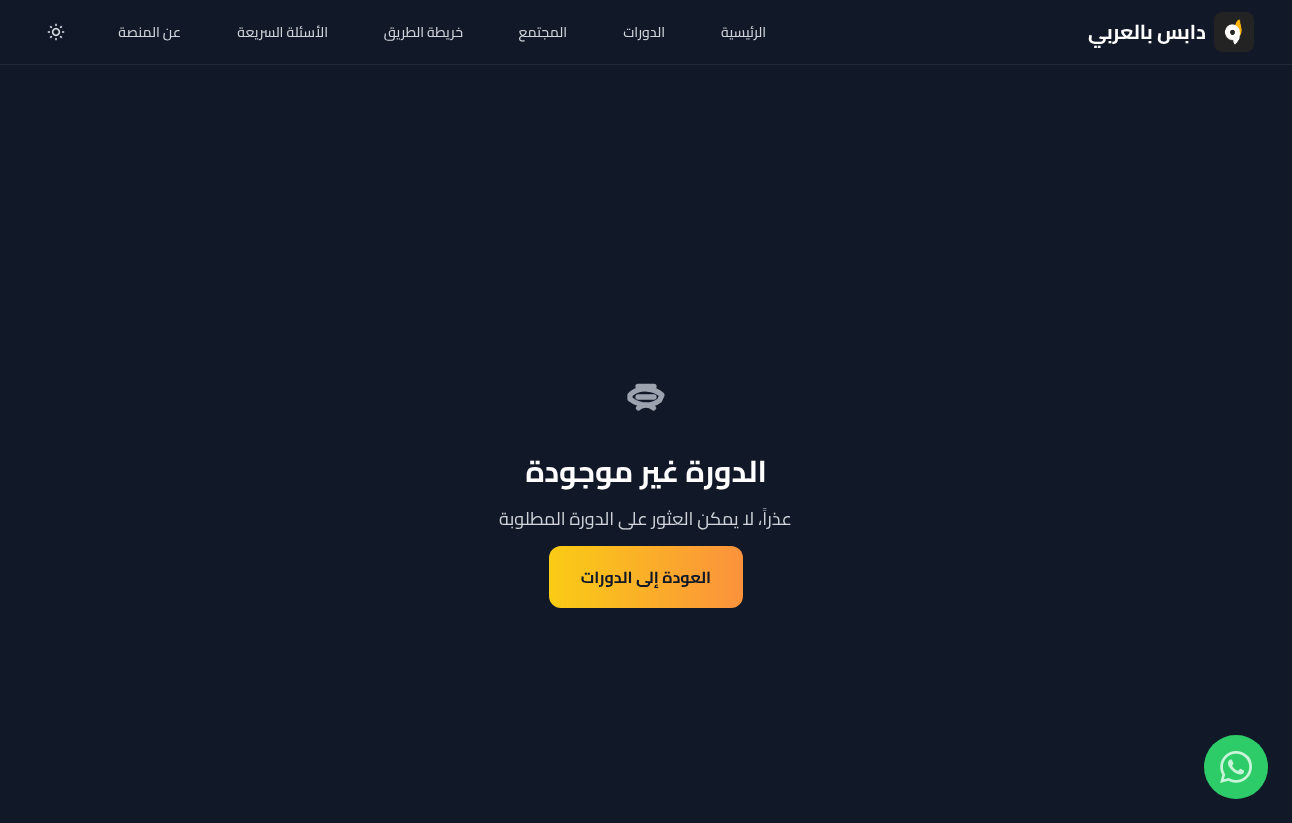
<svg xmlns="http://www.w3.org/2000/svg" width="1292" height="823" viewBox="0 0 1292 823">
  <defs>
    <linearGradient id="g1" gradientUnits="userSpaceOnUse" x1="549" y1="577" x2="743" y2="577"><stop offset="0" stop-color="#facc15"/><stop offset="1" stop-color="#fb923c"/></linearGradient>
  </defs>
  <rect width="100%" height="100%" fill="#111827"/>
  <rect x="0" y="64" width="1292" height="1" fill="#1f2937"/>
  <image x="1214" y="12" width="40" height="40" href="img1.png"/>
  <text x="1206" y="39" font-family="Cairo" font-size="20" font-weight="bold" direction="rtl" fill="#ffffff">دابس بالعربي</text>
  <text x="766" y="37" font-family="Cairo" font-size="14" font-weight="500" direction="rtl" fill="#d1d5db">الرئيسية</text>
  <text x="665" y="37" font-family="Cairo" font-size="14" font-weight="500" direction="rtl" fill="#d1d5db">الدورات</text>
  <text x="567" y="37" font-family="Cairo" font-size="14" font-weight="500" direction="rtl" fill="#d1d5db">المجتمع</text>
  <text x="463" y="37" font-family="Cairo" font-size="14" font-weight="500" direction="rtl" fill="#d1d5db">خريطة الطريق</text>
  <text x="328" y="37" font-family="Cairo" font-size="14" font-weight="500" direction="rtl" fill="#d1d5db">الأسئلة السريعة</text>
  <text x="181" y="37" font-family="Cairo" font-size="14" font-weight="500" direction="rtl" fill="#d1d5db">عن المنصة</text>
  <image x="47" y="23" width="18" height="18" href="img2.png"/>
  <path d="M638.5 408C642.5 404 649.5 404 653.5 408M638 397H654M638 386.5H654M659.5 400.5C653.5 405 646 406 639.5 404C635.5 403 632.5 401 630 399V395L631.5 393.5C640.5 386.5 654 388 662 395Z" fill="none" stroke="#9ca3af" stroke-width="5.3" stroke-linecap="round" stroke-linejoin="round"/>
  <text x="767" y="482" font-family="Cairo" font-size="30" font-weight="bold" direction="rtl" fill="#ffffff">الدورة غير موجودة</text>
  <text x="792" y="525" font-family="Cairo" font-size="18" direction="rtl" fill="#d1d5db">عذراً، لا يمكن العثور على الدورة المطلوبة</text>
  <rect x="549" y="546" width="194" height="62" rx="12" fill="url(#g1)"/>
  <text x="711" y="583" font-family="Cairo" font-size="16" font-weight="bold" direction="rtl" fill="#111827">العودة إلى الدورات</text>
  <circle cx="1236" cy="767" r="32" fill="#22c55e"/>
  <image x="1220" y="751" width="32" height="32" href="img3.png"/>
  <circle cx="1236" cy="767" r="32" fill="#4ade80" fill-opacity="0.3"/>
</svg>
